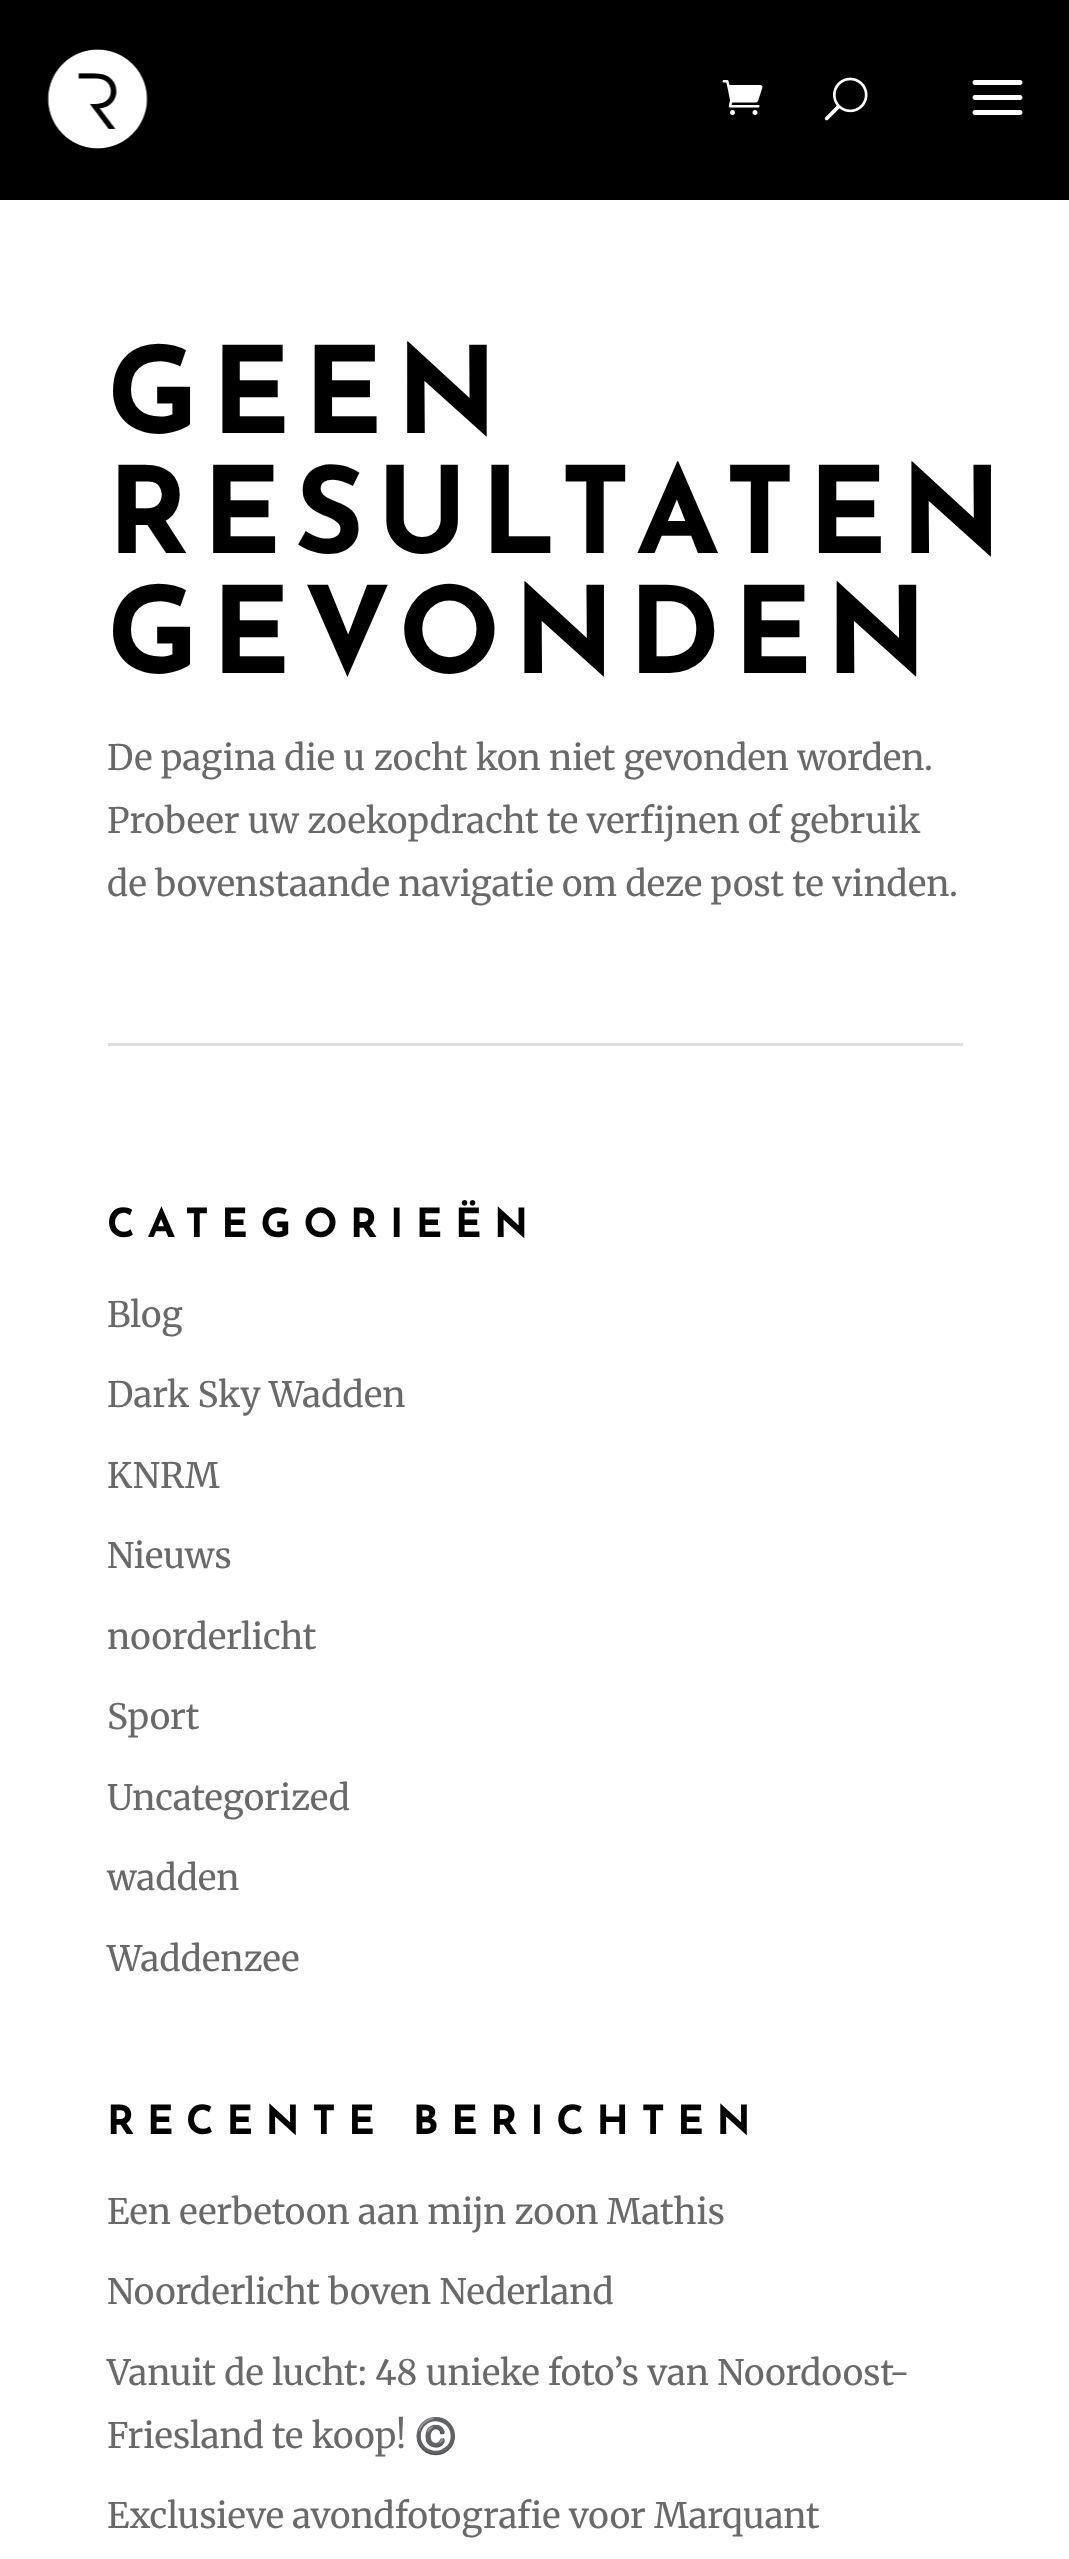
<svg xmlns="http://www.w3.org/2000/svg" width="1069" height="2559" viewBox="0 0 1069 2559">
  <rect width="100%" height="100%" fill="#ffffff"/>
  <rect x="0" y="0" width="1069" height="200" fill="#000000"/>
  <image x="47" y="49" width="101" height="100" href="img1.png"/>
  <image x="722" y="80" width="41" height="35" href="img2.png"/>
  <image x="824" y="77" width="44" height="44" href="img3.png"/>
  <image x="972" y="80" width="51" height="35" href="img4.png"/>
  <text x="107" y="433" font-family="Josefin Sans" font-size="120" font-weight="100" letter-spacing="12.5" fill="#000000">GEEN</text>
  <text x="107" y="553" font-family="Josefin Sans" font-size="120" font-weight="100" letter-spacing="12.5" fill="#000000">RESULTATEN</text>
  <text x="107" y="673" font-family="Josefin Sans" font-size="120" font-weight="100" letter-spacing="12.5" fill="#000000">GEVONDEN</text>
  <text x="107" y="770" font-family="Merriweather" font-size="35" font-weight="300" fill="#696969">De pagina die u zocht kon niet gevonden worden.</text>
  <text x="107" y="833" font-family="Merriweather" font-size="35" font-weight="300" fill="#696969">Probeer uw zoekopdracht te verfijnen of gebruik</text>
  <text x="107" y="896" font-family="Merriweather" font-size="35" font-weight="300" fill="#696969">de bovenstaande navigatie om deze post te vinden.</text>
  <rect x="108" y="1043" width="855" height="3" fill="#dedede"/>
  <text x="107" y="1237" font-family="Josefin Sans" font-size="40" font-weight="100" letter-spacing="12.5" fill="#000000">CATEGORIEËN</text>
  <text x="107" y="1327" font-family="Merriweather" font-size="35" font-weight="300" fill="#696969">Blog</text>
  <text x="107" y="1407" font-family="Merriweather" font-size="35" font-weight="300" fill="#696969">Dark Sky Wadden</text>
  <text x="107" y="1488" font-family="Merriweather" font-size="35" font-weight="300" fill="#696969">KNRM</text>
  <text x="107" y="1568" font-family="Merriweather" font-size="35" font-weight="300" fill="#696969">Nieuws</text>
  <text x="107" y="1649" font-family="Merriweather" font-size="35" font-weight="300" fill="#696969">noorderlicht</text>
  <text x="107" y="1729" font-family="Merriweather" font-size="35" font-weight="300" fill="#696969">Sport</text>
  <text x="107" y="1810" font-family="Merriweather" font-size="35" font-weight="300" fill="#696969">Uncategorized</text>
  <text x="107" y="1890" font-family="Merriweather" font-size="35" font-weight="300" fill="#696969">wadden</text>
  <text x="107" y="1971" font-family="Merriweather" font-size="35" font-weight="300" fill="#696969">Waddenzee</text>
  <text x="107" y="2134" font-family="Josefin Sans" font-size="40" font-weight="100" letter-spacing="12.5" fill="#000000">RECENTE BERICHTEN</text>
  <text x="107" y="2224" font-family="Merriweather" font-size="35" font-weight="300" fill="#696969">Een eerbetoon aan mijn zoon Mathis</text>
  <text x="107" y="2304" font-family="Merriweather" font-size="35" font-weight="300" fill="#696969">Noorderlicht boven Nederland</text>
  <text x="107" y="2385" font-family="Merriweather" font-size="35" font-weight="300" fill="#696969">Vanuit de lucht: 48 unieke foto’s van Noordoost-</text>
  <text x="107" y="2448" font-family="Merriweather" font-size="35" font-weight="300" fill="#696969">Friesland te koop!</text>
  <text x="414" y="2448" font-family="Noto Color Emoji" font-size="35" fill="#696969">©️</text>
  <text x="107" y="2528" font-family="Merriweather" font-size="35" font-weight="300" fill="#696969">Exclusieve avondfotografie voor Marquant</text>
</svg>
